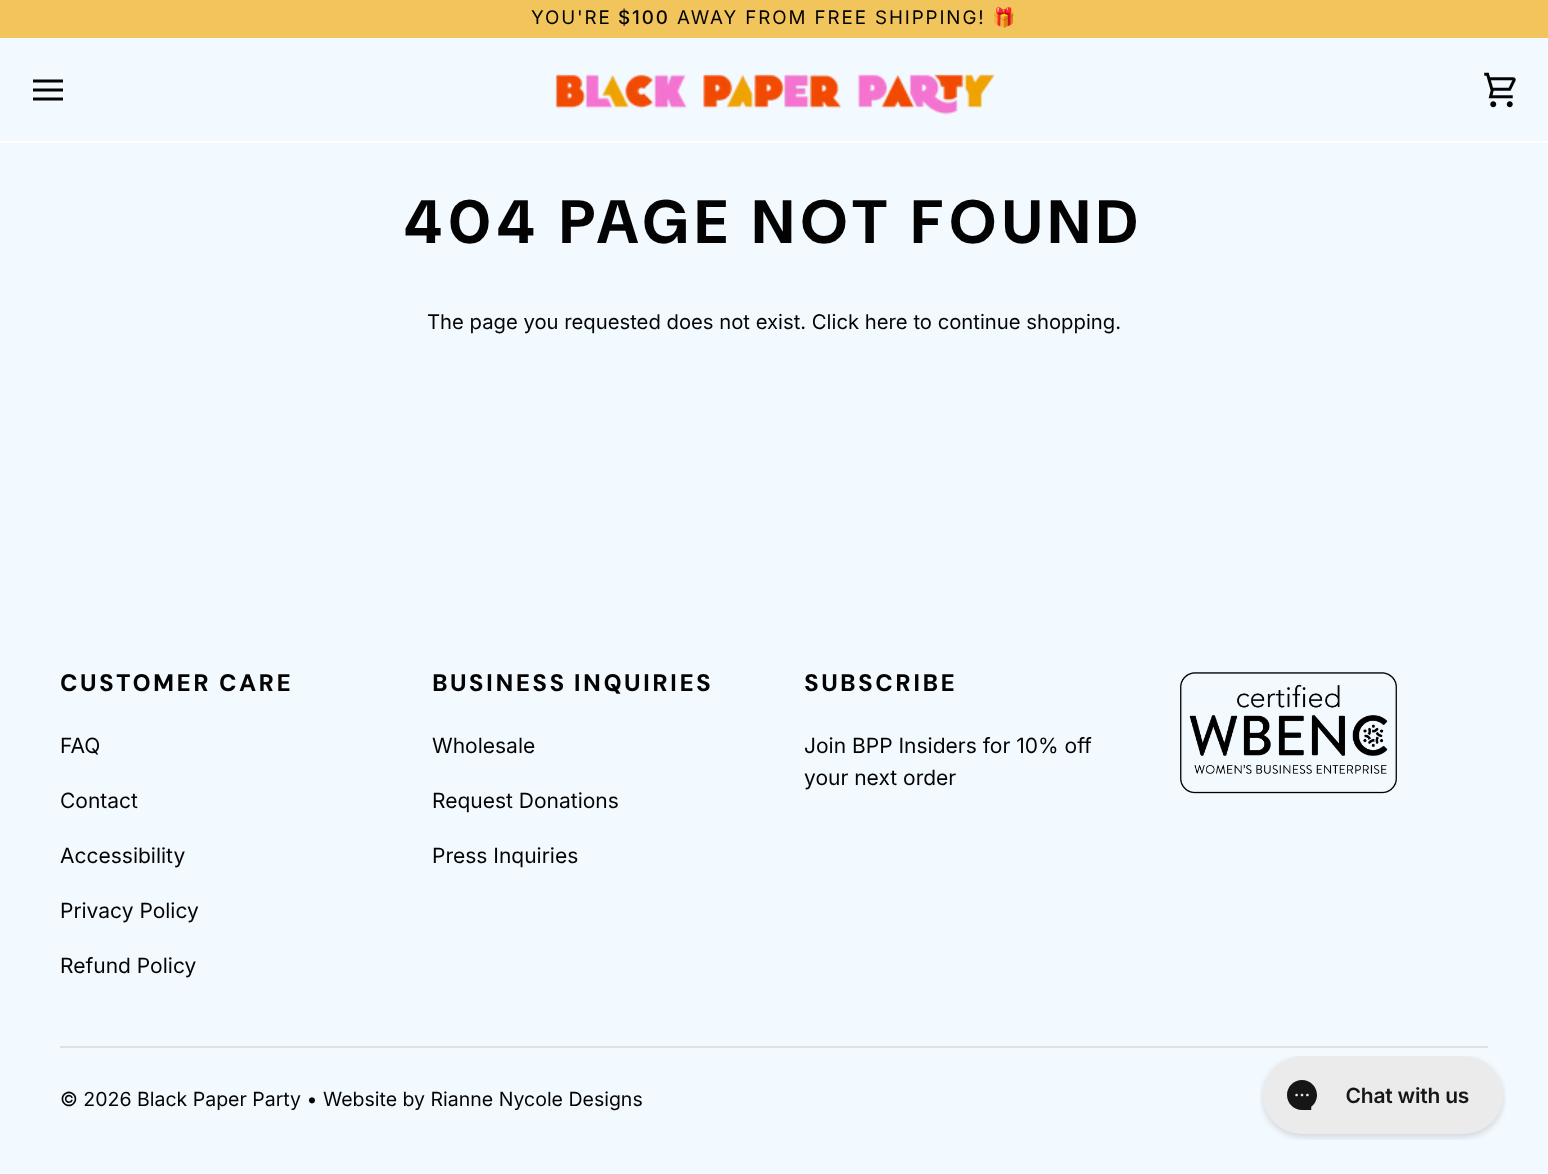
<svg xmlns="http://www.w3.org/2000/svg" width="1548" height="1174" viewBox="0 0 1548 1174">
  <rect width="100%" height="100%" fill="#f3faff"/>
  <rect x="0" y="0" width="1548" height="38" fill="#f1c45c"/>
  <text x="531" y="24" font-family="Inter" font-size="18.75" letter-spacing="1.9" fill="#030303">YOU'RE</text>
  <text x="618" y="24" font-family="Inter" font-size="18.75" font-weight="500" letter-spacing="1.9" fill="#030303">$100</text>
  <text x="677" y="24" font-family="Inter" font-size="18.75" letter-spacing="1.9" fill="#030303">AWAY FROM FREE SHIPPING!</text>
  <text x="992" y="24" font-family="Noto Color Emoji" font-size="18.75" letter-spacing="1.9" fill="#030303">🎁</text>
  <rect x="0" y="141" width="1548" height="2" fill="#ffffff"/>
  <path d="M61.5 81H34.5M61.5 90H34.5M61.5 99H34.5" fill="none" stroke="#030303" stroke-width="3" stroke-linecap="square"/>
  <image x="555" y="73" width="440" height="42" href="img1.png"/>
  <image x="1484" y="72" width="32" height="36" href="img2.png"/>
  <text x="404" y="243" font-family="'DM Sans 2'" font-size="61.25" font-weight="800" letter-spacing="6.1" fill="#030303">404 PAGE NOT FOUND</text>
  <text x="427" y="329" font-family="Inter" font-size="20.25" fill="#030303">The page you requested does not exist. Click here to continue shopping.</text>
  <text x="60" y="691" font-family="DM Sans" font-size="24" font-weight="800" letter-spacing="2.4" fill="#030303">CUSTOMER CARE</text>
  <text x="60" y="753" font-family="Inter" font-size="21" fill="#030303">FAQ</text>
  <text x="60" y="808" font-family="Inter" font-size="21" fill="#030303">Contact</text>
  <text x="60" y="863" font-family="Inter" font-size="21" fill="#030303">Accessibility</text>
  <text x="60" y="918" font-family="Inter" font-size="21" fill="#030303">Privacy Policy</text>
  <text x="60" y="973" font-family="Inter" font-size="21" fill="#030303">Refund Policy</text>
  <text x="432" y="691" word-spacing="-1" font-family="DM Sans" font-size="24" font-weight="800" letter-spacing="2.4" fill="#030303">BUSINESS INQUIRIES</text>
  <text x="432" y="753" font-family="Inter" font-size="21" fill="#030303">Wholesale</text>
  <text x="432" y="808" font-family="Inter" font-size="21" fill="#030303">Request Donations</text>
  <text x="432" y="863" font-family="Inter" font-size="21" fill="#030303">Press Inquiries</text>
  <text x="804" y="691" font-family="DM Sans" font-size="24" font-weight="800" letter-spacing="2.4" fill="#030303">SUBSCRIBE</text>
  <text x="804" y="753" font-family="Inter" font-size="21" fill="#030303">Join BPP Insiders for 10% off</text>
  <text x="804" y="785" font-family="Inter" font-size="21" fill="#030303">your next order</text>
  <image x="1180" y="672" width="217" height="122" href="img3.png"/>
  <rect x="60" y="1046" width="1428" height="2" fill="#e0e0e0"/>
  <text x="60" y="1106" font-family="Inter" font-size="19.5" fill="#030303">© 2026 Black Paper Party • Website by Rianne Nycole Designs</text>
  <image x="1260" y="1056" width="246" height="84" href="img4.png"/>
</svg>
